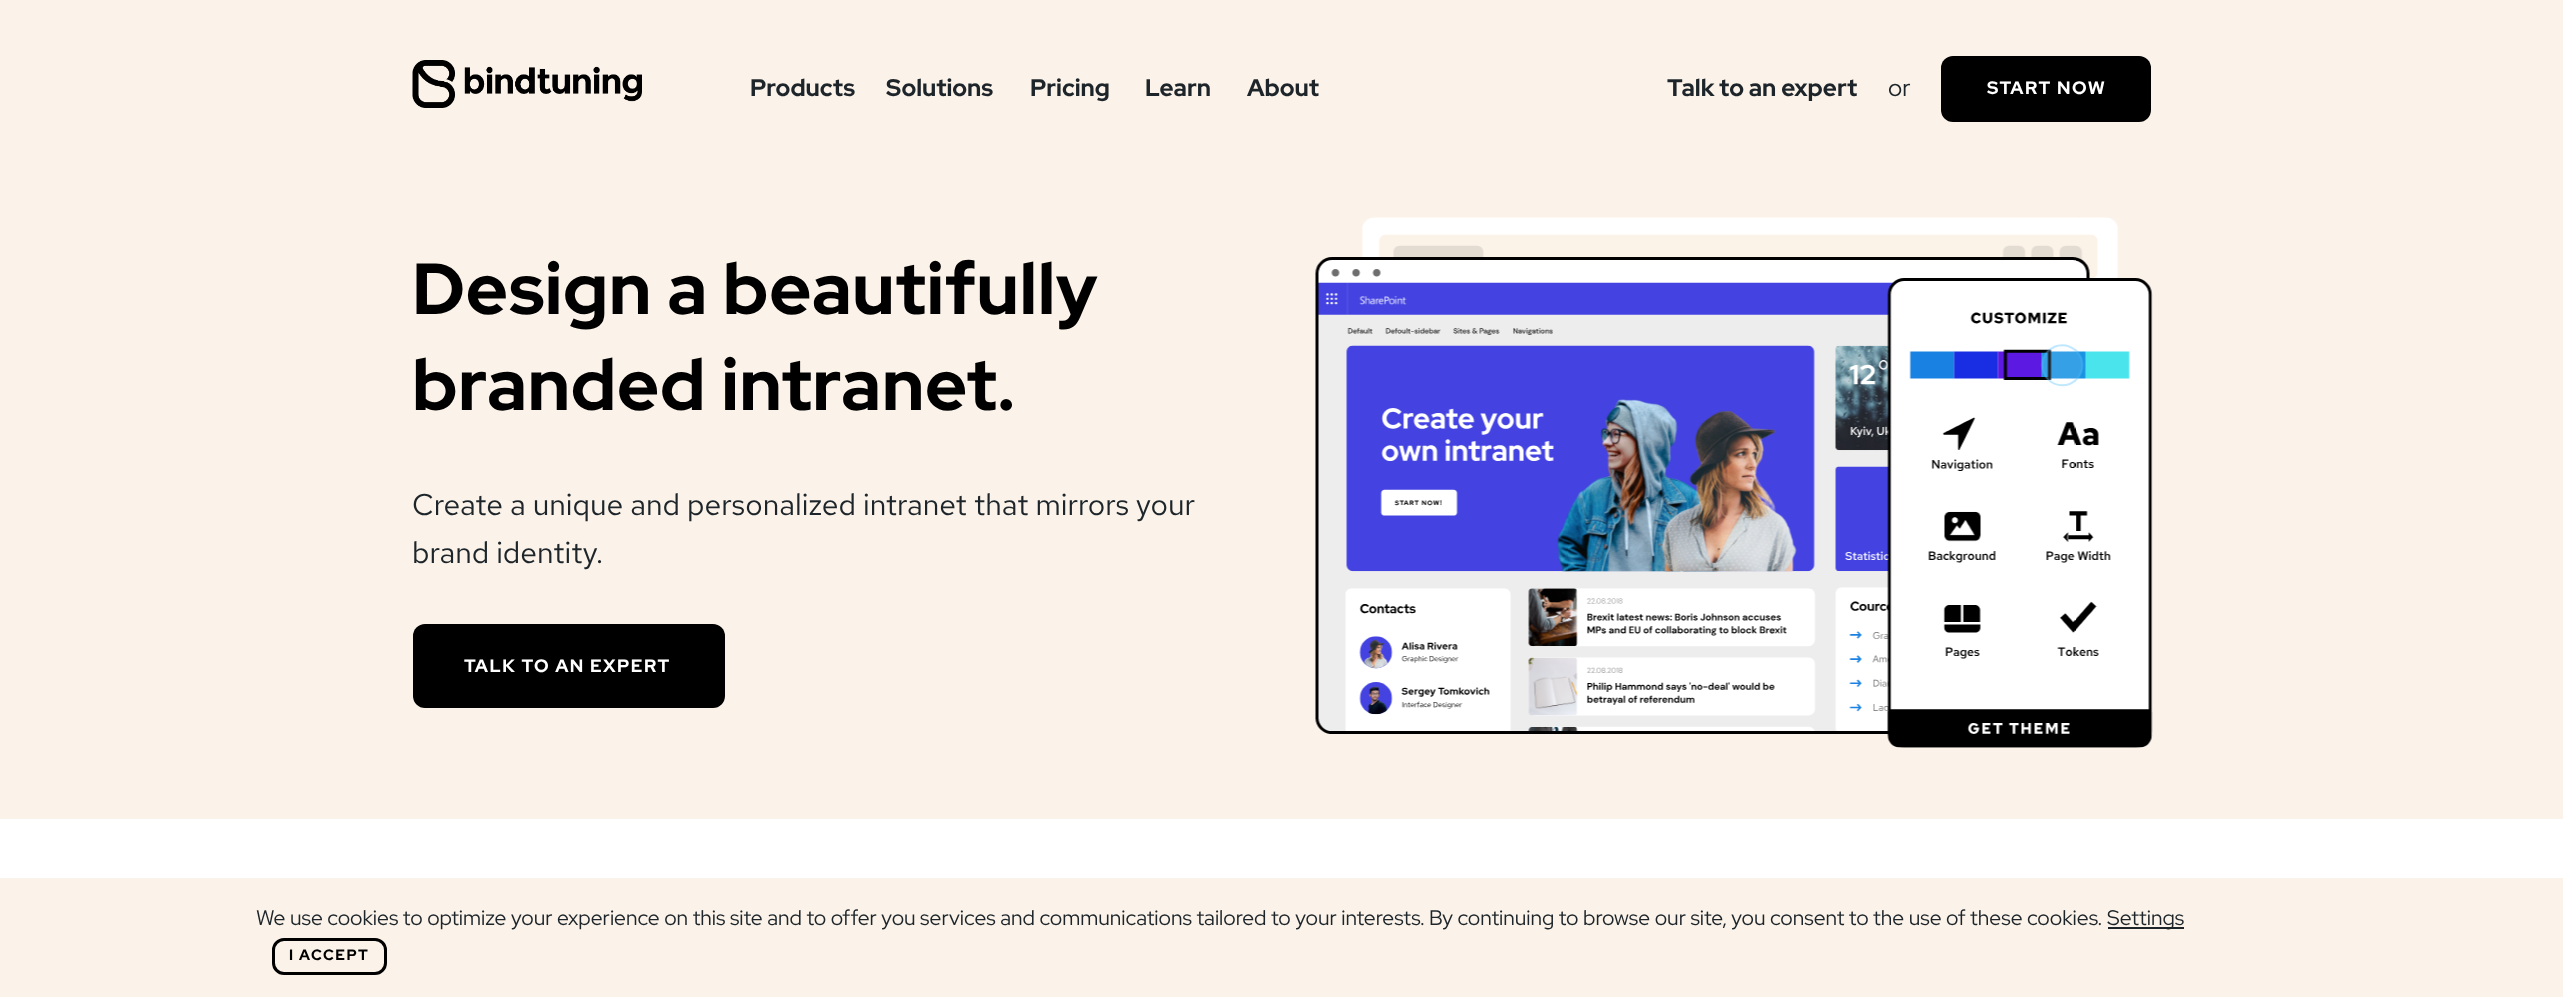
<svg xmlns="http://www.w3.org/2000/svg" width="2563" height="997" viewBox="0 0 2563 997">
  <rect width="100%" height="100%" fill="#ffffff"/>
  <rect x="0" y="0" width="2563" height="819" fill="#fbf3e9"/>
  <image x="412" y="60" width="230" height="48" href="img1.png"/>
  <text x="750" y="96" font-family="Red Hat Display" font-size="24" font-weight="bold" fill="#1d252a">Products</text>
  <text x="886" y="96" font-family="Red Hat Display" font-size="24" font-weight="bold" fill="#1d252a">Solutions</text>
  <text x="1030" y="96" font-family="Red Hat Display" font-size="24" font-weight="bold" fill="#1d252a">Pricing</text>
  <text x="1145" y="96" font-family="Red Hat Display" font-size="24" font-weight="bold" fill="#1d252a">Learn</text>
  <text x="1247" y="96" font-family="Red Hat Display" font-size="24" font-weight="bold" fill="#1d252a">About</text>
  <text x="1667" y="96" font-family="Red Hat Display" font-size="24" font-weight="bold" fill="#1d252a">Talk to an expert</text>
  <text x="1888" y="96" font-family="Red Hat Display" font-size="24" fill="#1d252a">or</text>
  <rect x="1941" y="56" width="210" height="66" rx="12" fill="#000000"/>
  <text x="1987" y="94" font-family="Red Hat Display" font-size="18" font-weight="bold" letter-spacing="1.5" fill="#ffffff">START NOW</text>
  <text x="412" y="314" font-family="Red Hat Display" font-size="72" font-weight="bold" letter-spacing="0.6" fill="#000000">Design a beautifully</text>
  <text x="412" y="410" font-family="Red Hat Display" font-size="72" font-weight="bold" letter-spacing="0.6" fill="#000000">branded intranet.</text>
  <text x="412" y="515" font-family="Red Hat Text" font-size="30" fill="#1d252a">Create a unique and personalized intranet that mirrors your</text>
  <text x="412" y="563" font-family="Red Hat Text" font-size="30" fill="#1d252a">brand identity.</text>
  <rect x="413" y="624" width="312" height="84" rx="12" fill="#000000"/>
  <text x="464" y="672" font-family="Red Hat Display" font-size="18" font-weight="bold" letter-spacing="1.5" fill="#ffffff">TALK TO AN EXPERT</text>
  <image x="1315" y="217" width="838" height="531" href="img2.png"/>
  <rect x="0" y="878" width="2563" height="119" fill="#fbf3e9"/>
  <text x="256" y="925" font-family="Red Hat Display" font-size="21" fill="#1d252a">We use cookies to optimize your experience on this site and to offer you services and communications tailored to your interests. By continuing to browse our site, you consent to the use of these cookies.</text>
  <rect x="2108" y="927" width="76" height="2" fill="#1d252a"/>
  <text x="2107" y="925" font-family="Red Hat Display" font-size="21" fill="#1d252a">Settings</text>
  <rect x="273.5" y="939.5" width="112" height="34" rx="10.5" fill="none" stroke="#000000" stroke-width="3"/>
  <text x="289" y="960" font-family="Red Hat Display" font-size="15" font-weight="bold" letter-spacing="1.5" fill="#000000">I ACCEPT</text>
</svg>
